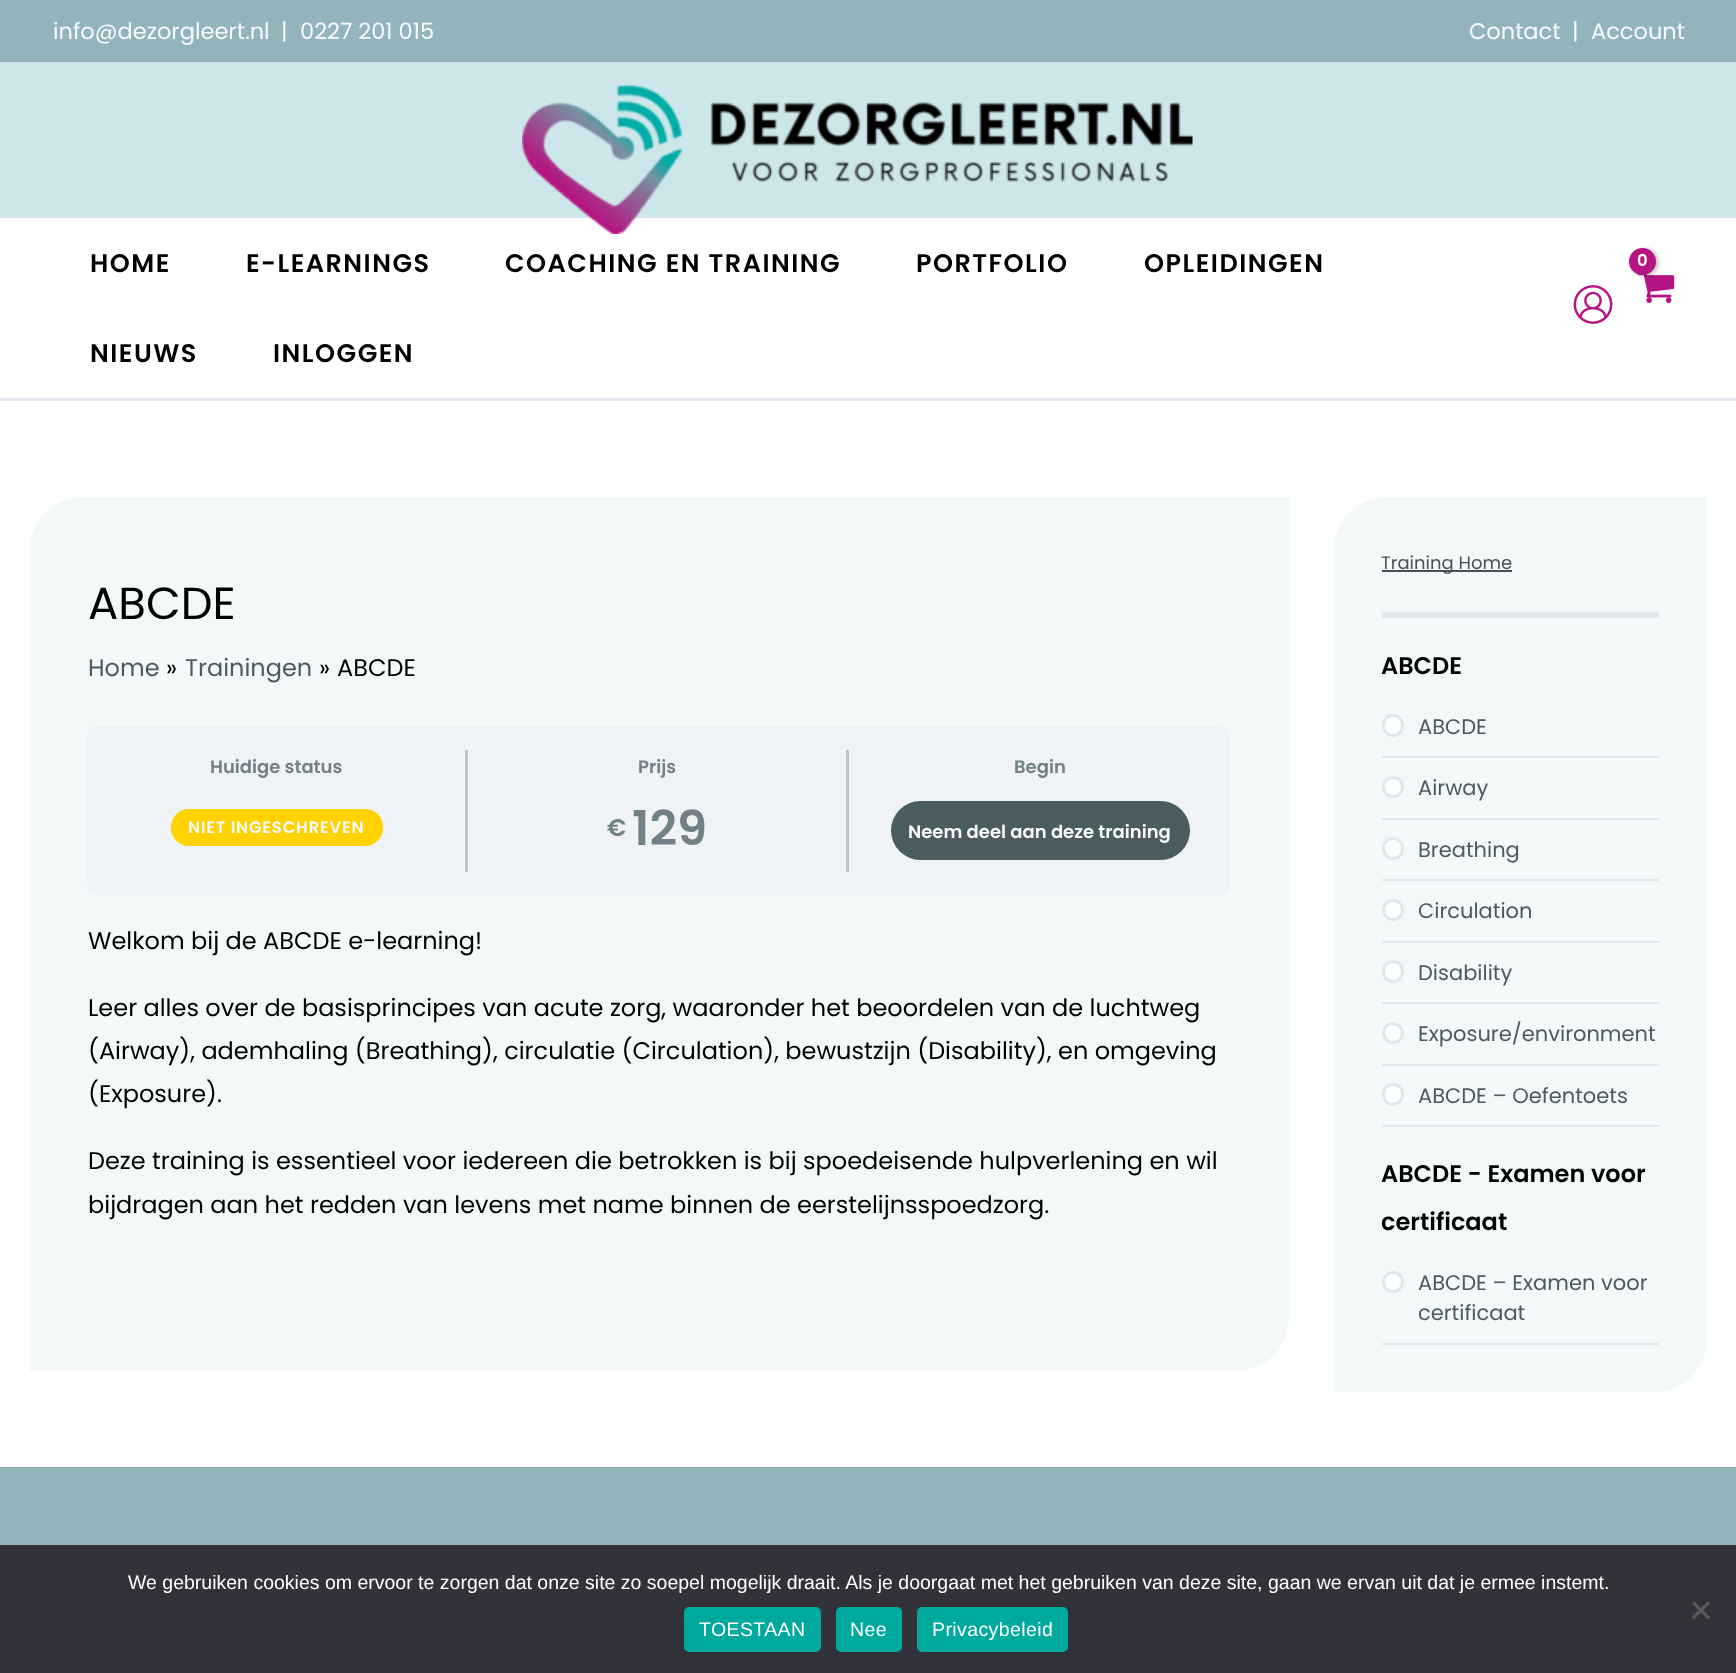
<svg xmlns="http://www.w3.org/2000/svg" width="1736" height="1673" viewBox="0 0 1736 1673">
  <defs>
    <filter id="blur1" x="-50%" y="-200%" width="200%" height="500%"><feGaussianBlur stdDeviation="2"/></filter>
  </defs>
  <rect width="100%" height="100%" fill="#ffffff"/>
  <rect x="0" y="0" width="1736" height="62" fill="#92b4bd"/>
  <text x="53" y="39" font-family="Poppins" font-size="22.5" fill="#f9fafb">info@dezorgleert.nl</text>
  <text x="281" y="39" font-family="Poppins" font-size="22.5" fill="#f9fafb">|</text>
  <text x="300" y="39" font-family="Poppins" font-size="22.5" fill="#f9fafb">0227 201 015</text>
  <text x="1469" y="39" font-family="Poppins" font-size="22.5" fill="#f9fafb">Contact</text>
  <text x="1572" y="39" font-family="Poppins" font-size="22.5" fill="#f9fafb">|</text>
  <text x="1591" y="39" font-family="Poppins" font-size="22.5" fill="#f9fafb">Account</text>
  <rect x="0" y="62" width="1736" height="156" fill="#cde6ea"/>
  <image x="522" y="85" width="671" height="149" href="img1.png"/>
  <rect x="0" y="398" width="1736" height="3" fill="#e2e8f0"/>
  <text x="90" y="272" font-family="Poppins" font-size="25.5" font-weight="600" letter-spacing="1.5" fill="#000000">HOME</text>
  <text x="246" y="272" font-family="Poppins" font-size="25.5" font-weight="600" letter-spacing="1.5" fill="#000000">E-LEARNINGS</text>
  <text x="505" y="272" font-family="Poppins" font-size="25.5" font-weight="600" letter-spacing="1.5" fill="#000000">COACHING EN TRAINING</text>
  <text x="916" y="272" font-family="Poppins" font-size="25.5" font-weight="600" letter-spacing="1.5" fill="#000000">PORTFOLIO</text>
  <text x="1144" y="272" font-family="Poppins" font-size="25.5" font-weight="600" letter-spacing="1.5" fill="#000000">OPLEIDINGEN</text>
  <text x="90" y="362" font-family="Poppins" font-size="25.5" font-weight="600" letter-spacing="1.5" fill="#000000">NIEUWS</text>
  <text x="273" y="362" font-family="Poppins" font-size="25.5" font-weight="600" letter-spacing="1.5" fill="#000000">INLOGGEN</text>
  <image x="1638" y="274" width="37" height="29" href="img2.png"/>
  <rect x="1631" y="249" width="27" height="27" rx="13.5" fill="#000000" fill-opacity="0.3" filter="url(#blur1)"/>
  <circle cx="1642.5" cy="261.5" r="13.5" fill="#b41582"/>
  <text x="1637" y="266" font-family="Poppins" font-size="16.5" font-weight="600" letter-spacing="-1" fill="#ffffff">0</text>
  <image x="1573" y="285" width="40" height="39" href="img3.png"/>
  <path d="M83 497H1289V1318C1289 1347.5 1265.5 1371 1236 1371H30V550C30 520.5 53.5 497 83 497Z" fill="#f3f8f9"/>
  <text x="88" y="619" font-family="Poppins" font-size="45" fill="#000000">ABCDE</text>
  <text x="88" y="676" font-family="Poppins" font-size="24" fill="#4a5c60">Home</text>
  <text x="166" y="676" font-family="Poppins" font-size="24" fill="#000000">»</text>
  <text x="185" y="676" font-family="Poppins" font-size="24" fill="#4a5c60">Trainingen</text>
  <text x="319" y="676" font-family="Poppins" font-size="24" fill="#000000">»</text>
  <text x="337" y="676" font-family="Poppins" font-size="24" fill="#000000">ABCDE</text>
  <rect x="87" y="726" width="1143" height="170" rx="9" fill="#f0f3f6"/>
  <rect x="465" y="750" width="3" height="122" fill="#bec5cb"/>
  <text x="210" y="773" font-family="Poppins" font-size="18" font-weight="600" fill="#728188">Huidige status</text>
  <rect x="171" y="809" width="212" height="37" rx="18" fill="#ffd200"/>
  <text x="188" y="833" font-family="Poppins" font-size="16.5" font-weight="600" letter-spacing="0.75" fill="#f9fafb">NIET INGESCHREVEN</text>
  <rect x="846" y="750" width="3" height="122" fill="#bec5cb"/>
  <text x="638" y="773" font-family="Poppins" font-size="18" font-weight="600" fill="#728188">Prijs</text>
  <text x="607" y="836" font-family="Poppins" font-size="24" font-weight="600" fill="#728188">€</text>
  <text x="632" y="845" font-family="Poppins" font-size="48" font-weight="600" fill="#728188">129</text>
  <text x="1014" y="773" font-family="Poppins" font-size="18" font-weight="600" fill="#728188">Begin</text>
  <rect x="891" y="801" width="299" height="59" rx="29.5" fill="#4a5c60"/>
  <text x="908" y="838" font-family="Poppins" font-size="18" font-weight="600" fill="#f9fafb">Neem deel aan deze training</text>
  <text x="88" y="949" font-family="Poppins" font-size="24" fill="#000000">Welkom bij de ABCDE e-learning!</text>
  <text x="88" y="1016" font-family="Poppins" font-size="24" fill="#000000">Leer alles over de basisprincipes van acute zorg, waaronder het beoordelen van de luchtweg</text>
  <text x="88" y="1059" font-family="Poppins" font-size="24" fill="#000000">(Airway), ademhaling (Breathing), circulatie (Circulation), bewustzijn (Disability), en omgeving</text>
  <text x="88" y="1102" font-family="Poppins" font-size="24" fill="#000000">(Exposure).</text>
  <text x="88" y="1169" font-family="Poppins" font-size="24" fill="#000000">Deze training is essentieel voor iedereen die betrokken is bij spoedeisende hulpverlening en wil</text>
  <text x="88" y="1213" font-family="Poppins" font-size="24" fill="#000000">bijdragen aan het redden van levens met name binnen de eerstelijnsspoedzorg.</text>
  <path d="M1387 497H1707V1339C1707 1368.5 1683.5 1392 1654 1392H1334V550C1334 520.5 1357.5 497 1387 497Z" fill="#f3f8f9"/>
  <rect x="1382" y="612" width="277" height="6" fill="#e2e7ed"/>
  <rect x="1382" y="570" width="130" height="2" fill="#495255"/>
  <text x="1381" y="569" font-family="Poppins" font-size="18" fill="#495255">Training Home</text>
  <text x="1381" y="674" font-family="Poppins" font-size="24" font-weight="600" fill="#000000">ABCDE</text>
  <rect x="1382" y="756" width="277" height="2" fill="#e2e7ed"/>
  <rect x="1383.5" y="715.5" width="19" height="20" rx="9.5" fill="#ffffff" stroke="#e2e7ed" stroke-width="3"/>
  <text x="1418" y="734" font-family="Poppins" font-size="21" fill="#4a5c60">ABCDE</text>
  <rect x="1382" y="818" width="277" height="2" fill="#e2e7ed"/>
  <circle cx="1393" cy="787" r="9.5" fill="#ffffff" stroke="#e2e7ed" stroke-width="3"/>
  <text x="1418" y="795" font-family="Poppins" font-size="21" fill="#4a5c60">Airway</text>
  <rect x="1382" y="879" width="277" height="2" fill="#e2e7ed"/>
  <rect x="1383.5" y="838.5" width="19" height="20" rx="9.5" fill="#ffffff" stroke="#e2e7ed" stroke-width="3"/>
  <text x="1418" y="857" font-family="Poppins" font-size="21" fill="#4a5c60">Breathing</text>
  <rect x="1382" y="941" width="277" height="2" fill="#e2e7ed"/>
  <circle cx="1393" cy="910" r="9.5" fill="#ffffff" stroke="#e2e7ed" stroke-width="3"/>
  <text x="1418" y="918" font-family="Poppins" font-size="21" fill="#4a5c60">Circulation</text>
  <rect x="1382" y="1002" width="277" height="2" fill="#e2e7ed"/>
  <rect x="1383.5" y="961.5" width="19" height="20" rx="9.5" fill="#ffffff" stroke="#e2e7ed" stroke-width="3"/>
  <text x="1418" y="980" font-family="Poppins" font-size="21" fill="#4a5c60">Disability</text>
  <rect x="1382" y="1064" width="277" height="2" fill="#e2e7ed"/>
  <circle cx="1393" cy="1033" r="9.5" fill="#ffffff" stroke="#e2e7ed" stroke-width="3"/>
  <text x="1418" y="1041" font-family="Poppins" font-size="21" fill="#4a5c60">Exposure/environment</text>
  <rect x="1382" y="1125" width="277" height="2" fill="#e2e7ed"/>
  <rect x="1383.5" y="1084.5" width="19" height="20" rx="9.5" fill="#ffffff" stroke="#e2e7ed" stroke-width="3"/>
  <text x="1418" y="1103" font-family="Poppins" font-size="21" fill="#4a5c60">ABCDE – Oefentoets</text>
  <text x="1381" y="1182" font-family="Poppins" font-size="24" font-weight="600" fill="#000000">ABCDE - Examen voor</text>
  <text x="1381" y="1230" font-family="Poppins" font-size="24" font-weight="600" fill="#000000">certificaat</text>
  <rect x="1382" y="1343" width="277" height="2" fill="#e2e7ed"/>
  <circle cx="1393" cy="1282" r="9.5" fill="#ffffff" stroke="#e2e7ed" stroke-width="3"/>
  <text x="1418" y="1290" font-family="Poppins" font-size="21" fill="#4a5c60">ABCDE – Examen voor</text>
  <text x="1418" y="1320" font-family="Poppins" font-size="21" fill="#4a5c60">certificaat</text>
  <rect x="0" y="1467" width="1736" height="78" fill="#92b4bd"/>
  <rect x="0" y="1545" width="1736" height="128" fill="#32323a"/>
  <text x="128" y="1589" font-family="Liberation Sans" font-size="19.5" fill="#ffffff">We gebruiken cookies om ervoor te zorgen dat onze site zo soepel mogelijk draait. Als je doorgaat met het gebruiken van deze site, gaan we ervan uit dat je ermee instemt.</text>
  <path d="M1708 1601L1710 1603.5L1694 1619.5L1692 1617Z" fill="#59595d"/>
  <path d="M1692 1603.5L1694 1601L1710 1617L1708 1619.5Z" fill="#59595d"/>
  <rect x="684" y="1607" width="137" height="45" rx="5" fill="#00a99d"/>
  <text x="699" y="1636" font-family="Liberation Sans" font-size="19.5" letter-spacing="0.4" fill="#ffffff">TOESTAAN</text>
  <rect x="836" y="1607" width="66" height="45" rx="5" fill="#00a99d"/>
  <text x="850" y="1636" font-family="Liberation Sans" font-size="19.5" letter-spacing="0.4" fill="#ffffff">Nee</text>
  <rect x="917" y="1607" width="151" height="45" rx="5" fill="#00a99d"/>
  <text x="932" y="1636" font-family="Liberation Sans" font-size="19.5" letter-spacing="0.4" fill="#ffffff">Privacybeleid</text>
</svg>
